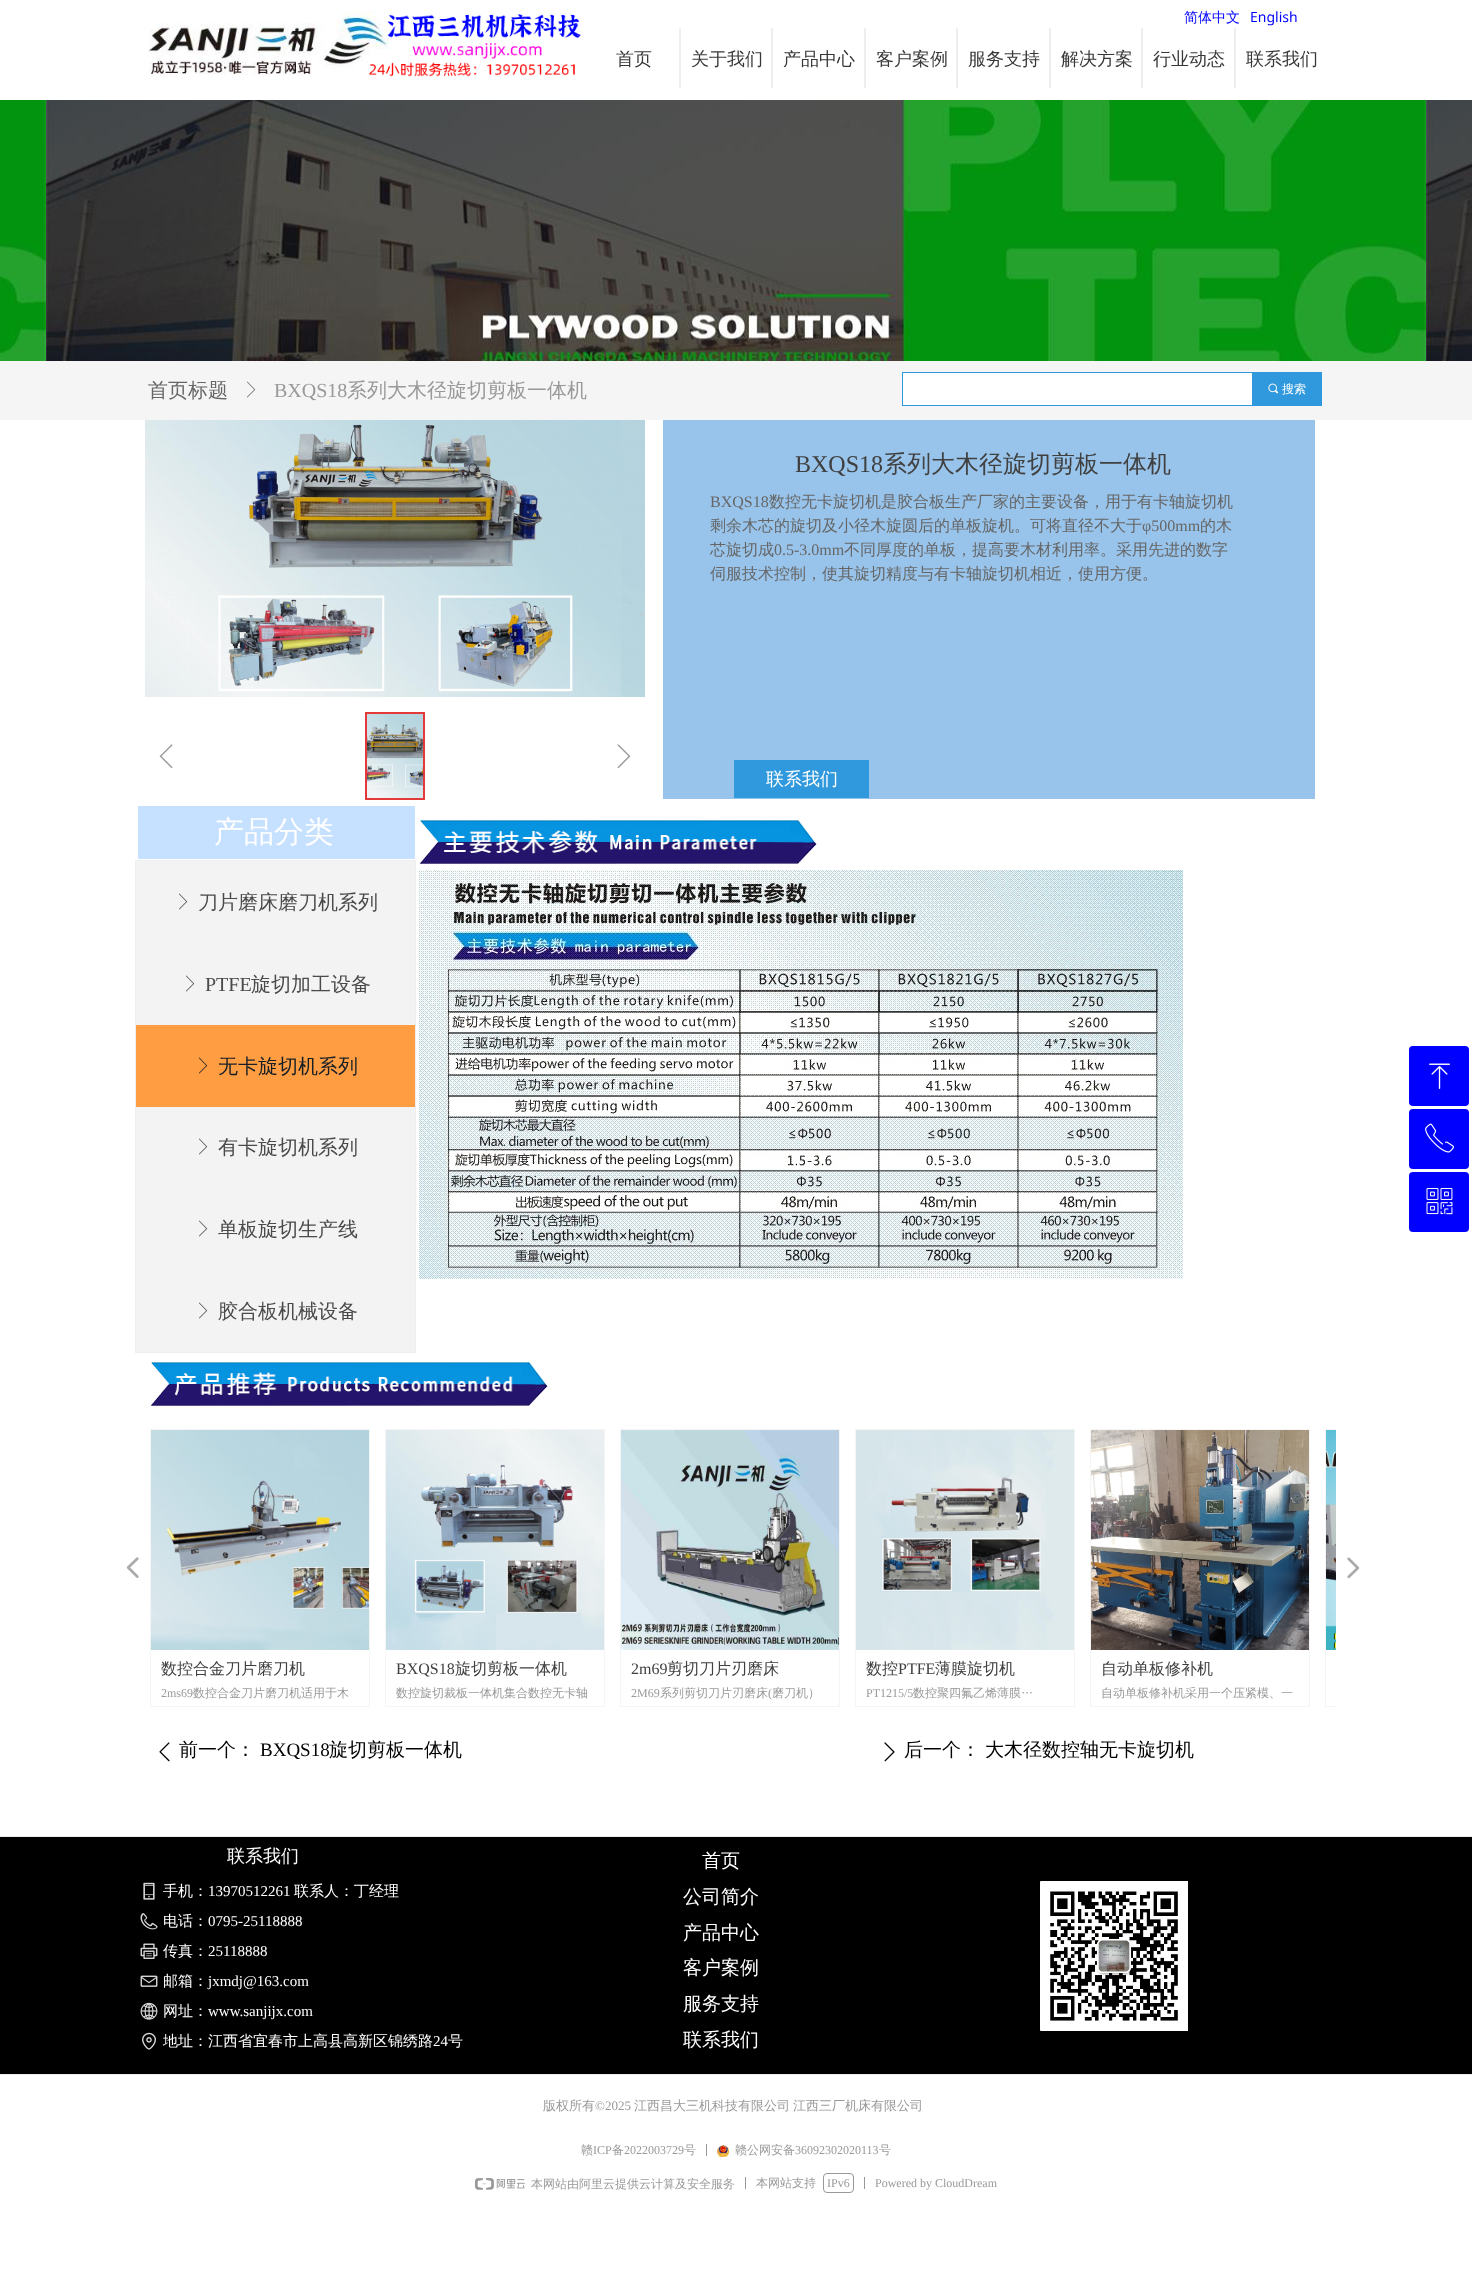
<svg xmlns="http://www.w3.org/2000/svg" width="1472" height="2280" viewBox="0 0 1472 2280">
  <defs>
    <clipPath id="clip1"><rect x="150" y="1429" width="1186" height="278"/></clipPath>
  </defs>
  <rect width="100%" height="100%" fill="#ffffff"/>
  <image x="148" y="10" width="433" height="67" href="img1.png"/>
  <text x="1184" y="22" font-family="WenQuanYi Zen Hei" font-size="14" font-weight="500" fill="#0000ff">简体中文</text>
  <text x="1250" y="22" font-family="Noto Sans" font-size="14" fill="#0000ff">English</text>
  <text x="616" y="65" font-family="WenQuanYi Zen Hei" font-size="18" font-weight="500" fill="#383838">首页</text>
  <rect x="679" y="28" width="2" height="60" fill="#eeeeee"/>
  <text x="691" y="65" font-family="WenQuanYi Zen Hei" font-size="18" font-weight="500" fill="#383838">关于我们</text>
  <rect x="771" y="28" width="2" height="60" fill="#eeeeee"/>
  <text x="783" y="65" font-family="WenQuanYi Zen Hei" font-size="18" font-weight="500" fill="#383838">产品中心</text>
  <rect x="864" y="28" width="2" height="60" fill="#eeeeee"/>
  <text x="876" y="65" font-family="WenQuanYi Zen Hei" font-size="18" font-weight="500" fill="#383838">客户案例</text>
  <rect x="956" y="28" width="2" height="60" fill="#eeeeee"/>
  <text x="968" y="65" font-family="WenQuanYi Zen Hei" font-size="18" font-weight="500" fill="#383838">服务支持</text>
  <rect x="1049" y="28" width="2" height="60" fill="#eeeeee"/>
  <text x="1061" y="65" font-family="WenQuanYi Zen Hei" font-size="18" font-weight="500" fill="#383838">解决方案</text>
  <rect x="1141" y="28" width="2" height="60" fill="#eeeeee"/>
  <text x="1153" y="65" font-family="WenQuanYi Zen Hei" font-size="18" font-weight="500" fill="#383838">行业动态</text>
  <rect x="1234" y="28" width="2" height="60" fill="#eeeeee"/>
  <text x="1246" y="65" font-family="WenQuanYi Zen Hei" font-size="18" font-weight="500" fill="#383838">联系我们</text>
  <image x="0" y="100" width="1472" height="261" href="img2.png"/>
  <rect x="0" y="361" width="1472" height="59" fill="#f5f5f5"/>
  <text x="148" y="397" font-family="WenQuanYi Zen Hei" font-size="20" font-weight="500" fill="#666666">首页标题</text>
  <image x="247" y="381" width="9" height="17" href="img3.png"/>
  <text x="274" y="397" font-family="Liberation Serif" font-size="20" fill="#999999">BXQS18</text>
  <text x="347" y="397" font-family="WenQuanYi Zen Hei" font-size="20" font-weight="500" fill="#999999">系列大木径旋切剪板一体机</text>
  <rect x="902.5" y="372.5" width="419" height="33" fill="none" stroke="#3099dd"/>
  <rect x="903" y="373" width="349" height="32" fill="#ffffff"/>
  <rect x="1252" y="373" width="69" height="32" fill="#3099dd"/>
  <image x="1268" y="383" width="11" height="11" href="img4.png"/>
  <text x="1282" y="393" font-family="WenQuanYi Zen Hei" font-size="12" font-weight="500" fill="#ffffff">搜索</text>
  <image x="145" y="420" width="500" height="277" href="img5.png"/>
  <image x="159" y="744" width="14" height="25" href="img6.png"/>
  <image x="367" y="714" width="56" height="84" href="img7.png"/>
  <rect x="366" y="713" width="58" height="86" fill="none" stroke="#e43939" stroke-width="2"/>
  <image x="617" y="744" width="14" height="25" href="img8.png"/>
  <rect x="663" y="420" width="652" height="379" fill="#98c4eb"/>
  <text x="795" y="472" font-family="Liberation Serif" font-size="24" fill="#404040">BXQS18</text>
  <text x="883" y="472" font-family="WenQuanYi Zen Hei" font-size="24" font-weight="500" fill="#404040">系列大木径旋切剪板一体机</text>
  <text x="710" y="507" font-family="Liberation Serif" font-size="16" fill="#666666">BXQS18</text>
  <text x="769" y="507" font-family="WenQuanYi Zen Hei" font-size="16" font-weight="500" fill="#666666">数控无卡旋切机是胶合板生产厂家的主要设备，用于有卡轴旋切机</text>
  <text x="710" y="531" font-family="WenQuanYi Zen Hei" font-size="16" font-weight="500" fill="#666666">剩余木芯的旋切及小径木旋圆后的单板旋机。可将直径不大于</text>
  <text x="1142" y="531" font-family="Liberation Serif" font-size="16" fill="#666666">φ500mm</text>
  <text x="1200" y="531" font-family="WenQuanYi Zen Hei" font-size="16" font-weight="500" fill="#666666">的木</text>
  <text x="710" y="555" font-family="WenQuanYi Zen Hei" font-size="16" font-weight="500" fill="#666666">芯旋切成</text>
  <text x="774" y="555" font-family="Liberation Serif" font-size="16" fill="#666666">0.5-3.0mm</text>
  <text x="844" y="555" font-family="WenQuanYi Zen Hei" font-size="16" font-weight="500" fill="#666666">不同厚度的单板，提高要木材利用率。采用先进的数字</text>
  <text x="710" y="579" font-family="WenQuanYi Zen Hei" font-size="16" font-weight="500" fill="#666666">伺服技术控制，使其旋切精度与有卡轴旋切机相近，使用方便。</text>
  <rect x="734" y="760" width="135" height="38" fill="#3099dd"/>
  <text x="766" y="785" font-family="WenQuanYi Zen Hei" font-size="18" font-weight="500" fill="#ffffff">联系我们</text>
  <rect x="138" y="806" width="277" height="53" fill="#c6e0ff"/>
  <text x="214" y="842" font-family="WenQuanYi Zen Hei" font-size="30" font-weight="500" fill="#ffffff">产品分类</text>
  <image x="419" y="820" width="398" height="44" href="img9.png"/>
  <rect x="135.5" y="860.5" width="280" height="492" fill="#f3f3f3" stroke="#eeeeee"/>
  <image x="179" y="893" width="9" height="17" href="img10.png"/>
  <text x="198" y="909" font-family="WenQuanYi Zen Hei" font-size="20" font-weight="500" fill="#4a4a4a">刀片磨床磨刀机系列</text>
  <image x="186" y="975" width="9" height="17" href="img10.png"/>
  <text x="205" y="991" font-family="Liberation Serif" font-size="20" fill="#4a4a4a">PTFE</text>
  <text x="251" y="991" font-family="WenQuanYi Zen Hei" font-size="20" font-weight="500" fill="#4a4a4a">旋切加工设备</text>
  <rect x="136" y="1025" width="279" height="82" fill="#ff9d43"/>
  <image x="198" y="1057" width="10" height="17" href="img11.png"/>
  <text x="218" y="1073" font-family="WenQuanYi Zen Hei" font-size="20" font-weight="500" fill="#171f25">无卡旋切机系列</text>
  <image x="199" y="1138" width="9" height="17" href="img10.png"/>
  <text x="218" y="1154" font-family="WenQuanYi Zen Hei" font-size="20" font-weight="500" fill="#4a4a4a">有卡旋切机系列</text>
  <image x="199" y="1220" width="9" height="17" href="img10.png"/>
  <text x="218" y="1236" font-family="WenQuanYi Zen Hei" font-size="20" font-weight="500" fill="#4a4a4a">单板旋切生产线</text>
  <image x="199" y="1302" width="9" height="17" href="img10.png"/>
  <text x="218" y="1318" font-family="WenQuanYi Zen Hei" font-size="20" font-weight="500" fill="#4a4a4a">胶合板机械设备</text>
  <image x="419" y="870" width="764" height="409" href="img12.png"/>
  <image x="150" y="1362" width="398" height="44" href="img13.png"/>
  <image x="126" y="1557" width="13" height="21" href="img14.png"/>
  <g clip-path="url(#clip1)">
    <rect x="1325.5" y="1429.5" width="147" height="277" fill="none" stroke="#f5f5f5"/>
  </g>
  <image x="1347" y="1557" width="13" height="22" href="img15.png"/>
  <rect x="150.5" y="1429.5" width="219" height="277" fill="none" stroke="#f5f5f5"/>
  <image x="151" y="1430" width="218" height="220" href="img16.png"/>
  <text x="161" y="1674" font-family="WenQuanYi Zen Hei" font-size="16" font-weight="500" fill="#404040">数控合金刀片磨刀机</text>
  <text x="161" y="1697" font-family="Liberation Serif" font-size="12" fill="#999999">2ms69</text>
  <text x="193" y="1697" font-family="WenQuanYi Zen Hei" font-size="12" font-weight="500" fill="#999999">数控合金刀片磨刀机适用于木</text>
  <rect x="385.5" y="1429.5" width="219" height="277" fill="none" stroke="#f5f5f5"/>
  <image x="386" y="1430" width="218" height="220" href="img17.png"/>
  <text x="396" y="1674" font-family="Liberation Serif" font-size="16" fill="#404040">BXQS18</text>
  <text x="455" y="1674" font-family="WenQuanYi Zen Hei" font-size="16" font-weight="500" fill="#404040">旋切剪板一体机</text>
  <text x="396" y="1697" font-family="WenQuanYi Zen Hei" font-size="12" font-weight="500" fill="#999999">数控旋切裁板一体机集合数控无卡轴</text>
  <rect x="620.5" y="1429.5" width="219" height="277" fill="none" stroke="#f5f5f5"/>
  <image x="621" y="1430" width="218" height="220" href="img18.png"/>
  <text x="631" y="1674" font-family="Liberation Serif" font-size="16" fill="#404040">2m69</text>
  <text x="667" y="1674" font-family="WenQuanYi Zen Hei" font-size="16" font-weight="500" fill="#404040">剪切刀片刃磨床</text>
  <text x="631" y="1697" font-family="Liberation Serif" font-size="12" fill="#999999">2M69</text>
  <text x="660" y="1697" font-family="WenQuanYi Zen Hei" font-size="12" font-weight="500" fill="#999999">系列剪切刀片刃磨床</text>
  <text x="768" y="1697" font-family="Liberation Serif" font-size="12" fill="#999999">(</text>
  <text x="772" y="1697" font-family="WenQuanYi Zen Hei" font-size="12" font-weight="500" fill="#999999">磨刀机）</text>
  <rect x="855.5" y="1429.5" width="219" height="277" fill="none" stroke="#f5f5f5"/>
  <image x="856" y="1430" width="218" height="220" href="img19.png"/>
  <text x="866" y="1674" font-family="WenQuanYi Zen Hei" font-size="16" font-weight="500" fill="#404040">数控</text>
  <text x="898" y="1674" font-family="Liberation Serif" font-size="16" fill="#404040">PTFE</text>
  <text x="935" y="1674" font-family="WenQuanYi Zen Hei" font-size="16" font-weight="500" fill="#404040">薄膜旋切机</text>
  <text x="866" y="1697" font-family="Liberation Serif" font-size="12" fill="#999999">PT1215/5</text>
  <text x="913" y="1697" font-family="WenQuanYi Zen Hei" font-size="12" font-weight="500" fill="#999999">数控聚四氟乙烯薄膜…</text>
  <rect x="1090.5" y="1429.5" width="219" height="277" fill="none" stroke="#f5f5f5"/>
  <image x="1091" y="1430" width="218" height="220" href="img20.png"/>
  <text x="1101" y="1674" font-family="WenQuanYi Zen Hei" font-size="16" font-weight="500" fill="#404040">自动单板修补机</text>
  <text x="1101" y="1697" font-family="WenQuanYi Zen Hei" font-size="12" font-weight="500" fill="#999999">自动单板修补机采用一个压紧模、一</text>
  <image x="1326" y="1430" width="10" height="220" href="img21.png"/>
  <image x="159" y="1742" width="11" height="20" href="img22.png"/>
  <text x="179" y="1756" font-family="WenQuanYi Zen Hei" font-size="19" font-weight="500" fill="#000000">前一个：</text>
  <text x="260" y="1756" font-family="Liberation Serif" font-size="19" fill="#000000">BXQS18</text>
  <text x="329" y="1756" font-family="WenQuanYi Zen Hei" font-size="19" font-weight="500" fill="#000000">旋切剪板一体机</text>
  <image x="884" y="1742" width="11" height="20" href="img23.png"/>
  <text x="904" y="1756" font-family="WenQuanYi Zen Hei" font-size="19" font-weight="500" fill="#000000">后一个：</text>
  <text x="985" y="1756" font-family="WenQuanYi Zen Hei" font-size="19" font-weight="500" fill="#000000">大木径数控轴无卡旋切机</text>
  <rect x="0" y="1837" width="1472" height="237" fill="#000000"/>
  <rect x="0" y="1836" width="1472" height="1" fill="#eeeeee"/>
  <rect x="0" y="2074" width="1472" height="1" fill="#eeeeee"/>
  <text x="227" y="1862" font-family="WenQuanYi Zen Hei" font-size="18" font-weight="500" fill="#ffffff">联系我们</text>
  <text x="702" y="1867" font-family="WenQuanYi Zen Hei" font-size="19" font-weight="500" fill="#ffffff">首页</text>
  <text x="683" y="1903" font-family="WenQuanYi Zen Hei" font-size="19" font-weight="500" fill="#ffffff">公司简介</text>
  <text x="683" y="1939" font-family="WenQuanYi Zen Hei" font-size="19" font-weight="500" fill="#ffffff">产品中心</text>
  <text x="683" y="1974" font-family="WenQuanYi Zen Hei" font-size="19" font-weight="500" fill="#ffffff">客户案例</text>
  <text x="683" y="2010" font-family="WenQuanYi Zen Hei" font-size="19" font-weight="500" fill="#ffffff">服务支持</text>
  <text x="683" y="2046" font-family="WenQuanYi Zen Hei" font-size="19" font-weight="500" fill="#ffffff">联系我们</text>
  <image x="1040" y="1881" width="148" height="150" href="img24.png"/>
  <image x="143" y="1882" width="12" height="18" href="img25.png"/>
  <text x="163" y="1896" font-family="WenQuanYi Zen Hei" font-size="15" font-weight="500" fill="#ffffff">手机：</text>
  <text x="208" y="1896" font-family="Liberation Serif" font-size="15" fill="#ffffff">13970512261</text>
  <text x="294" y="1896" font-family="WenQuanYi Zen Hei" font-size="15" font-weight="500" fill="#ffffff">联系人：丁经理</text>
  <image x="140" y="1913" width="18" height="17" href="img26.png"/>
  <text x="163" y="1926" font-family="WenQuanYi Zen Hei" font-size="15" font-weight="500" fill="#ffffff">电话：</text>
  <text x="208" y="1926" font-family="Liberation Serif" font-size="15" fill="#ffffff">0795-25118888</text>
  <image x="140" y="1943" width="18" height="16" href="img27.png"/>
  <text x="163" y="1956" font-family="WenQuanYi Zen Hei" font-size="15" font-weight="500" fill="#ffffff">传真：</text>
  <text x="208" y="1956" font-family="Liberation Serif" font-size="15" fill="#ffffff">25118888</text>
  <image x="140" y="1975" width="18" height="12" href="img28.png"/>
  <text x="163" y="1986" font-family="WenQuanYi Zen Hei" font-size="15" font-weight="500" fill="#ffffff">邮箱：</text>
  <text x="208" y="1986" font-family="Liberation Serif" font-size="15" fill="#ffffff">jxmdj@163.com</text>
  <image x="140" y="2002" width="18" height="18" href="img29.png"/>
  <text x="163" y="2016" font-family="WenQuanYi Zen Hei" font-size="15" font-weight="500" fill="#ffffff">网址：</text>
  <text x="208" y="2016" font-family="Liberation Serif" font-size="15" fill="#ffffff">www.sanjijx.com</text>
  <image x="142" y="2032" width="14" height="18" href="img30.png"/>
  <text x="163" y="2046" font-family="WenQuanYi Zen Hei" font-size="15" font-weight="500" fill="#ffffff">地址：江西省宜春市上高县高新区锦绣路</text>
  <text x="433" y="2046" font-family="Liberation Serif" font-size="15" fill="#ffffff">24</text>
  <text x="448" y="2046" font-family="WenQuanYi Zen Hei" font-size="15" font-weight="500" fill="#ffffff">号</text>
  <text x="543" y="2110" font-family="WenQuanYi Zen Hei" font-size="13" font-weight="500" fill="#999999">版权所有</text>
  <text x="595" y="2110" font-family="Liberation Serif" font-size="13" fill="#999999">©2025</text>
  <text x="634" y="2110" font-family="WenQuanYi Zen Hei" font-size="13" font-weight="500" fill="#999999">江西昌大三机科技有限公司</text>
  <text x="793" y="2110" font-family="WenQuanYi Zen Hei" font-size="13" font-weight="500" fill="#999999">江西三厂机床有限公司</text>
  <rect x="1409" y="1046" width="60" height="60" rx="4" fill="#0000ff"/>
  <image x="1429" y="1063" width="21" height="26" href="img31.png"/>
  <rect x="1409" y="1109" width="60" height="60" rx="4" fill="#0000ff"/>
  <image x="1425" y="1123" width="29" height="30" href="img32.png"/>
  <rect x="1409" y="1172" width="60" height="60" rx="4" fill="#0000ff"/>
  <image x="1426" y="1188" width="27" height="27" href="img33.png"/>
  <text x="581" y="2154" font-family="WenQuanYi Zen Hei" font-size="12" font-weight="500" fill="#999999">赣</text>
  <text x="593" y="2154" font-family="Liberation Serif" font-size="12" fill="#999999">ICP</text>
  <text x="612" y="2154" font-family="WenQuanYi Zen Hei" font-size="12" font-weight="500" fill="#999999">备</text>
  <text x="624" y="2154" font-family="Liberation Serif" font-size="12" fill="#999999">2022003729</text>
  <text x="684" y="2154" font-family="WenQuanYi Zen Hei" font-size="12" font-weight="500" fill="#999999">号</text>
  <rect x="706" y="2144" width="1" height="12" fill="#989898"/>
  <image x="717" y="2145" width="12" height="12" href="img34.png"/>
  <text x="735" y="2154" font-family="WenQuanYi Zen Hei" font-size="12" font-weight="500" fill="#999999">赣公网安备</text>
  <text x="795" y="2154" font-family="Liberation Serif" font-size="12" fill="#999999">36092302020113</text>
  <text x="879" y="2154" font-family="WenQuanYi Zen Hei" font-size="12" font-weight="500" fill="#999999">号</text>
  <image x="475" y="2178" width="50" height="12" href="img35.png"/>
  <text x="531" y="2188" font-family="WenQuanYi Zen Hei" font-size="12" font-weight="500" fill="#999999">本网站由阿里云提供云计算及安全服务</text>
  <rect x="745" y="2177" width="1" height="12" fill="#989898"/>
  <text x="756" y="2187" font-family="WenQuanYi Zen Hei" font-size="12" font-weight="500" fill="#999999">本网站支持</text>
  <rect x="823.5" y="2173.5" width="30" height="19" rx="3.5" fill="none" stroke="#989898"/>
  <text x="827" y="2187" font-family="Liberation Serif" font-size="12" fill="#999999">IPv6</text>
  <rect x="864" y="2177" width="1" height="12" fill="#989898"/>
  <text x="875" y="2187" font-family="Liberation Serif" font-size="12" fill="#999999">Powered by CloudDream</text>
</svg>
